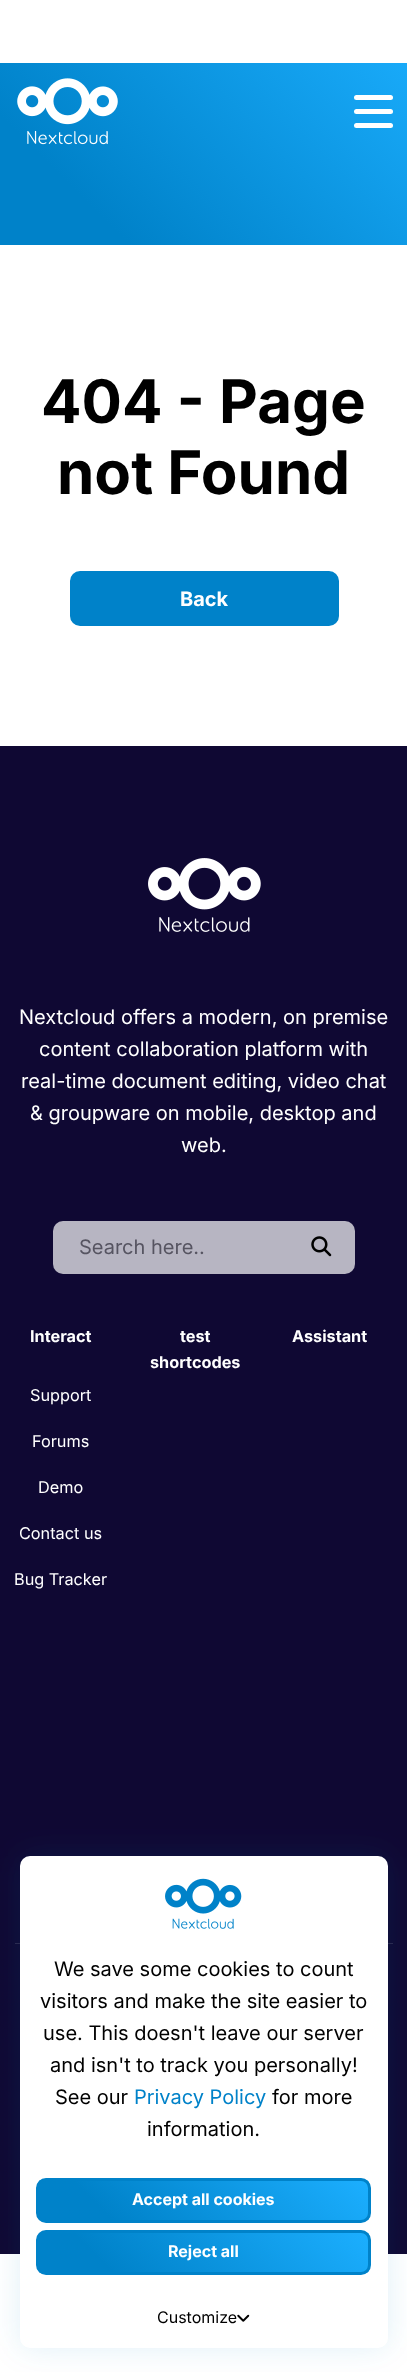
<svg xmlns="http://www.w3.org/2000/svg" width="407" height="2372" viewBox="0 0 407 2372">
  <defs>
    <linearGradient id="g1" gradientUnits="userSpaceOnUse" x1="41" y1="286" x2="367" y2="-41"><stop offset="0.2" stop-color="#0082c9"/><stop offset="1" stop-color="#1cafff"/></linearGradient>
    <filter id="blur1" x="-50%" y="-200%" width="200%" height="500%"><feGaussianBlur stdDeviation="15.5"/></filter>
    <clipPath id="clip1"><rect x="36" y="2178" width="335" height="45" rx="10"/></clipPath>
    <linearGradient id="g2" gradientUnits="userSpaceOnUse" x1="111" y1="2293" x2="296" y2="2108"><stop offset="0.2" stop-color="#0082c9"/><stop offset="1" stop-color="#1cafff"/></linearGradient>
    <clipPath id="clip2"><rect x="36" y="2230" width="335" height="45" rx="10"/></clipPath>
    <linearGradient id="g3" gradientUnits="userSpaceOnUse" x1="111" y1="2345" x2="296" y2="2160"><stop offset="0.2" stop-color="#0082c9"/><stop offset="1" stop-color="#1cafff"/></linearGradient>
  </defs>
  <rect width="100%" height="100%" fill="#ffffff"/>
  <rect x="0" y="63" width="407" height="182" fill="url(#g1)"/>
  <image x="17" y="78" width="101" height="67" href="img1.png"/>
  <rect x="354" y="95" width="39" height="5" rx="2.5" fill="#ffffff"/>
  <rect x="354" y="109" width="39" height="5" rx="2.5" fill="#ffffff"/>
  <rect x="354" y="123" width="39" height="5" rx="2.5" fill="#ffffff"/>
  <text x="41" y="423" font-family="Inter" font-size="60" font-weight="bold" fill="#000000">404 - Page</text>
  <text x="57" y="494" font-family="Inter" font-size="60" font-weight="bold" fill="#000000">not Found</text>
  <rect x="71.5" y="572.5" width="266" height="52" rx="8.5" fill="#0082c9" stroke="#0082c9" stroke-width="3"/>
  <text x="180" y="606" font-family="Inter" font-size="20" font-weight="bold" fill="#ffffff">Back</text>
  <rect x="0" y="746" width="407" height="1508" fill="#0f0833"/>
  <image x="148" y="858" width="113" height="74" href="img2.png"/>
  <text x="19" y="1024" font-family="Inter" font-size="20" fill="#ffffff">Nextcloud offers a modern, on premise</text>
  <text x="39" y="1056" font-family="Inter" font-size="20" fill="#ffffff">content collaboration platform with</text>
  <text x="21" y="1088" font-family="Inter" font-size="20" fill="#ffffff">real-time document editing, video chat</text>
  <text x="30" y="1120" font-family="Inter" font-size="20" fill="#ffffff">&amp; groupware on mobile, desktop and</text>
  <text x="181" y="1152" font-family="Inter" font-size="20" fill="#ffffff">web.</text>
  <rect x="53" y="1221" width="302" height="53" rx="10" fill="#b7b5c2"/>
  <text x="79" y="1254" font-family="Inter" font-size="20" fill="#565461">Search here..</text>
  <image x="311" y="1236" width="21" height="21" href="img3.png"/>
  <text x="30" y="1342" font-family="Inter" font-size="16.25" font-weight="bold" fill="#ffffff">Interact</text>
  <text x="30" y="1401" font-family="Inter" font-size="16.25" fill="#ffffff">Support</text>
  <text x="32" y="1447" font-family="Inter" font-size="16.25" fill="#ffffff">Forums</text>
  <text x="38" y="1493" font-family="Inter" font-size="16.25" fill="#ffffff">Demo</text>
  <text x="19" y="1539" font-family="Inter" font-size="16.25" fill="#ffffff">Contact us</text>
  <text x="14" y="1585" font-family="Inter" font-size="16.25" fill="#ffffff">Bug Tracker</text>
  <text x="180" y="1342" font-family="Inter" font-size="16.25" font-weight="bold" fill="#ffffff">test</text>
  <text x="150" y="1368" font-family="Inter" font-size="16.25" font-weight="bold" fill="#ffffff">shortcodes</text>
  <text x="292" y="1342" font-family="Inter" font-size="16.25" font-weight="bold" fill="#ffffff">Assistant</text>
  <rect x="15" y="1943" width="378" height="1" fill="#2c264b"/>
  <rect x="20" y="1856" width="368" height="492" rx="10" fill="#0082c9" fill-opacity="0.12" filter="url(#blur1)"/>
  <rect x="20" y="1856" width="368" height="492" rx="10" fill="#ffffff"/>
  <image x="165" y="1878" width="77" height="51" href="img4.png"/>
  <text x="54" y="1976" font-family="Inter" font-size="20" fill="#000000">We save some cookies to count</text>
  <text x="40" y="2008" font-family="Inter" font-size="20" fill="#000000">visitors and make the site easier to</text>
  <text x="43" y="2040" font-family="Inter" font-size="20" fill="#000000">use. This doesn't leave our server</text>
  <text x="50" y="2072" font-family="Inter" font-size="20" fill="#000000">and isn't to track you personally!</text>
  <text x="55" y="2104" font-family="Inter" font-size="20" fill="#000000">See our</text>
  <text x="134" y="2104" font-family="Inter" font-size="20" fill="#0082c9">Privacy Policy</text>
  <text x="272" y="2104" font-family="Inter" font-size="20" fill="#000000">for more</text>
  <text x="147" y="2136" font-family="Inter" font-size="20" fill="#000000">information.</text>
  <g clip-path="url(#clip1)">
    <rect x="39" y="2180" width="330" height="40" fill="url(#g2)"/>
  </g>
  <rect x="37.5" y="2179.5" width="332" height="42" rx="8.5" fill="none" stroke="#0082c9" stroke-width="3"/>
  <text x="132" y="2205" font-family="Inter" font-size="16" font-weight="bold" fill="#ffffff">Accept all cookies</text>
  <g clip-path="url(#clip2)">
    <rect x="39" y="2233" width="330" height="40" fill="url(#g3)"/>
  </g>
  <rect x="37.5" y="2231.5" width="332" height="42" rx="8.5" fill="none" stroke="#0082c9" stroke-width="3"/>
  <text x="168" y="2257" font-family="Inter" font-size="16" font-weight="bold" fill="#ffffff">Reject all</text>
  <text x="157" y="2323" font-family="Inter" font-size="16" fill="#000000">Customize</text>
  <image x="237" y="2314" width="13" height="8" href="img5.png"/>
</svg>
